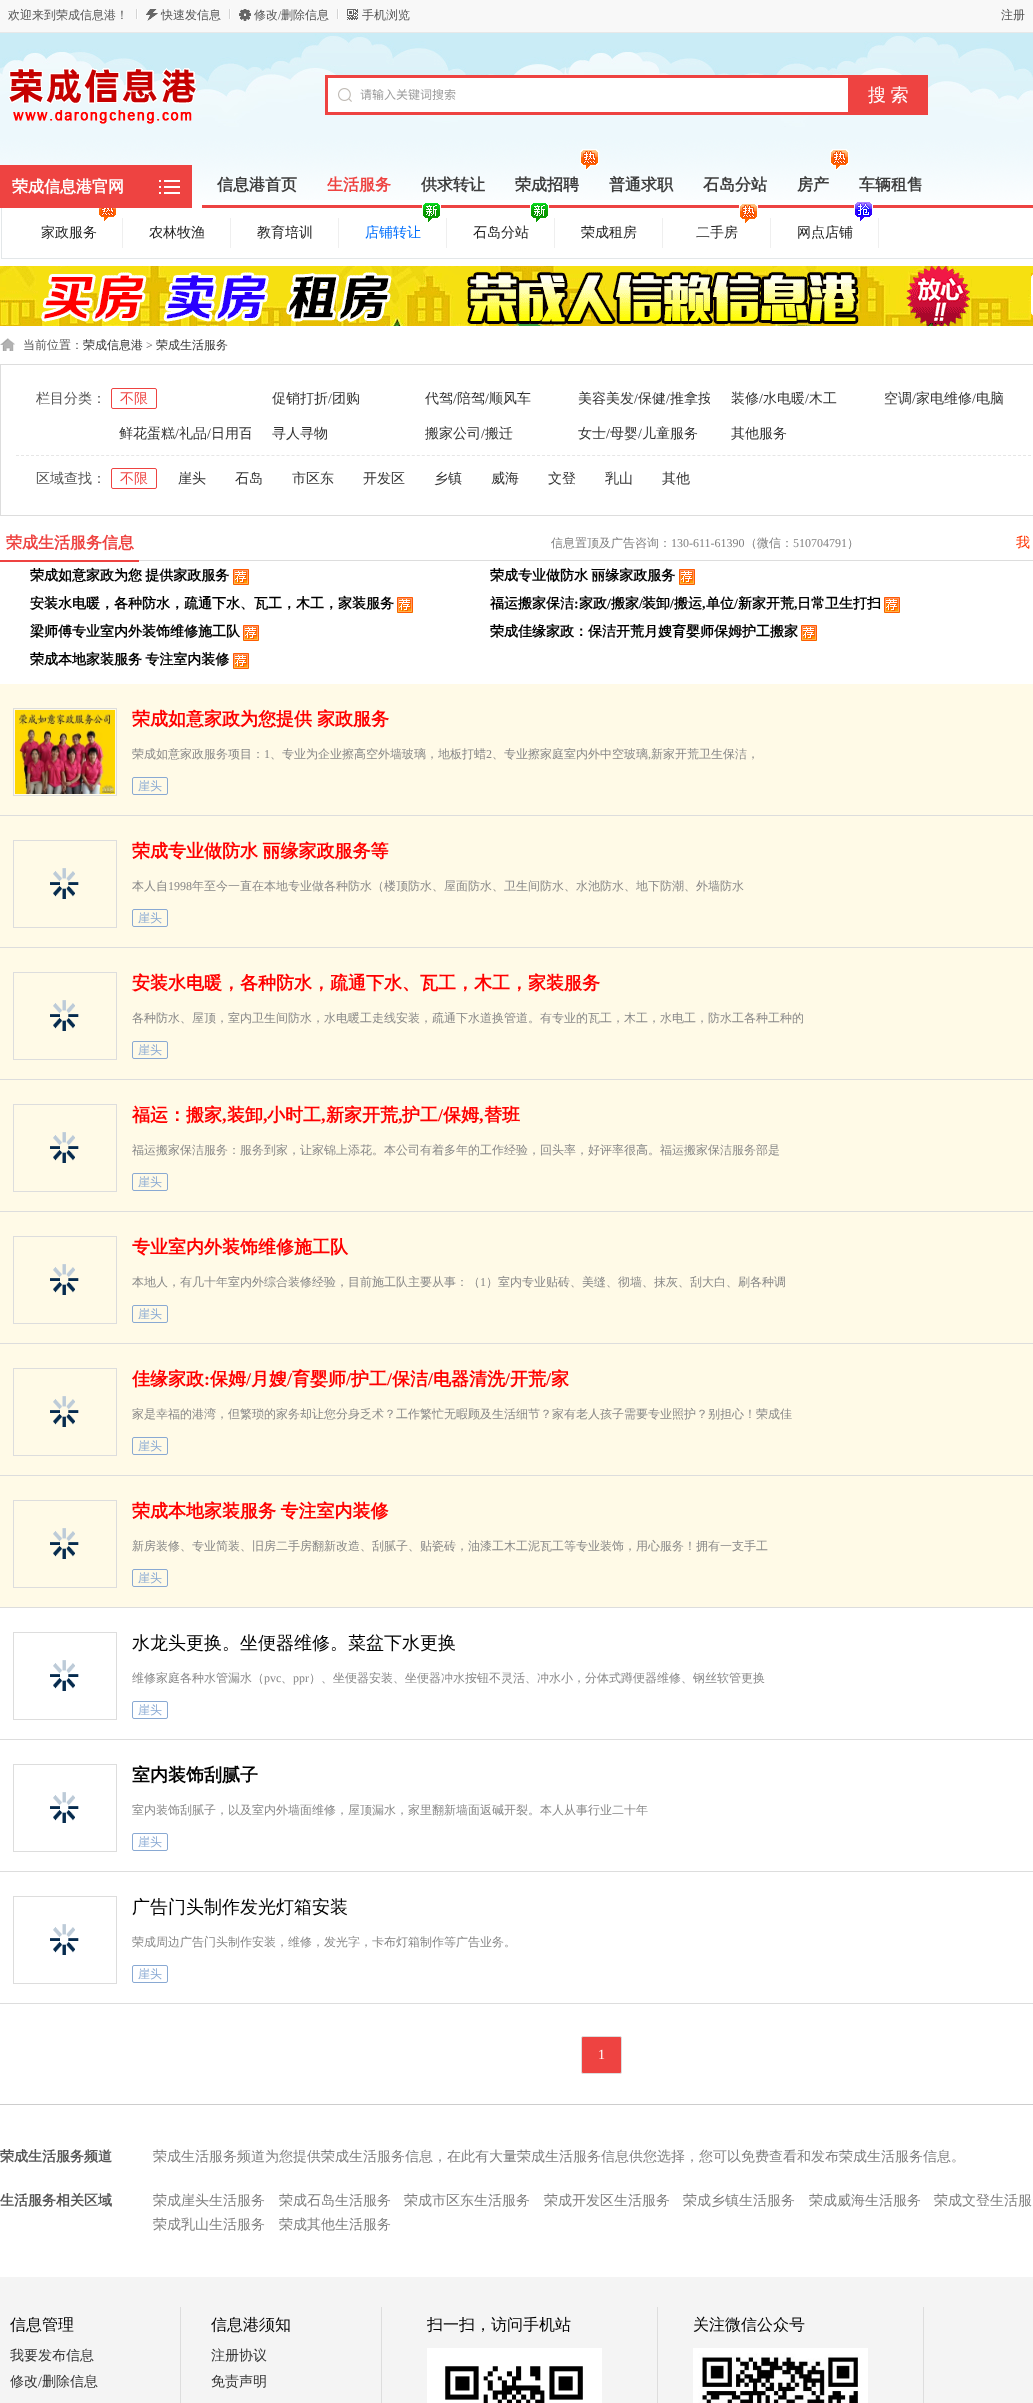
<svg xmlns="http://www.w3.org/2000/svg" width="1033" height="2403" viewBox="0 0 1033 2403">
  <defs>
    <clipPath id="clip1"><rect x="570" y="385" width="140" height="35"/></clipPath>
    <clipPath id="clip2"><rect x="111" y="420" width="140" height="35"/></clipPath>
  </defs>
  <rect width="100%" height="100%" fill="#ffffff"/>
  <image x="0" y="33" width="1033" height="167" href="img1.png"/>
  <rect x="0" y="0" width="1033" height="32" fill="#f8f8f8"/>
  <rect x="0" y="32" width="1033" height="1" fill="#e8e8e8"/>
  <text x="8" y="19" font-family="WenQuanYi Zen Hei" font-size="12" font-weight="500" fill="#555555">欢迎来到荣成信息港！</text>
  <rect x="137" y="9" width="1" height="10" fill="#ffffff"/>
  <rect x="136" y="9" width="1" height="10" fill="#d4d4d4"/>
  <image x="146" y="9" width="12" height="12" href="img2.png"/>
  <text x="161" y="19" font-family="WenQuanYi Zen Hei" font-size="12" font-weight="500" fill="#555555">快速发信息</text>
  <rect x="230" y="9" width="1" height="10" fill="#ffffff"/>
  <rect x="229" y="9" width="1" height="10" fill="#d4d4d4"/>
  <image x="239" y="9" width="12" height="12" href="img3.png"/>
  <text x="254" y="19" font-family="WenQuanYi Zen Hei" font-size="12" font-weight="500" fill="#555555">修改</text>
  <text x="278" y="19" font-family="Liberation Serif" font-size="12" fill="#555555">/</text>
  <text x="281" y="19" font-family="WenQuanYi Zen Hei" font-size="12" font-weight="500" fill="#555555">删除信息</text>
  <rect x="338" y="9" width="1" height="10" fill="#ffffff"/>
  <rect x="337" y="9" width="1" height="10" fill="#d4d4d4"/>
  <image x="347" y="9" width="11" height="11" href="img4.png"/>
  <text x="362" y="19" font-family="WenQuanYi Zen Hei" font-size="12" font-weight="500" fill="#555555">手机浏览</text>
  <text x="1001" y="19" font-family="WenQuanYi Zen Hei" font-size="12" font-weight="500" fill="#555555">注册</text>
  <image x="8" y="68" width="189" height="56" href="img5.png"/>
  <rect x="328" y="78" width="520" height="34" fill="#ffffff"/>
  <image x="338" y="88" width="14" height="14" href="img6.png"/>
  <rect x="325" y="75" width="523" height="3" fill="#ee4341"/>
  <rect x="325" y="112" width="523" height="3" fill="#ee4341"/>
  <rect x="325" y="75" width="3" height="40" fill="#ee4341"/>
  <text x="360" y="99" font-family="Noto Sans CJK SC" font-size="12" fill="#9d9d9d">请输入关键词搜索</text>
  <rect x="848" y="75" width="80" height="40" fill="#ee4341"/>
  <text x="868" y="101" word-spacing="-1" font-family="WenQuanYi Zen Hei" font-size="18" font-weight="500" fill="#ffffff">搜 索</text>
  <rect x="1" y="166" width="190" height="41" fill="none" stroke="#ee4341" stroke-width="2"/>
  <rect x="2" y="167" width="188" height="39" fill="#ee4341"/>
  <image x="159" y="180" width="21" height="14" href="img7.png"/>
  <text x="12" y="192" font-family="WenQuanYi Zen Hei" font-size="16" font-weight="bold" fill="#ffffff">荣成信息港官网</text>
  <rect x="202" y="205" width="831" height="3" fill="#ee4341"/>
  <text x="217" y="190" font-family="WenQuanYi Zen Hei" font-size="16" font-weight="bold" fill="#3d3d3d">信息港首页</text>
  <text x="327" y="190" font-family="WenQuanYi Zen Hei" font-size="16" font-weight="bold" fill="#ee4341">生活服务</text>
  <text x="421" y="190" font-family="WenQuanYi Zen Hei" font-size="16" font-weight="bold" fill="#3d3d3d">供求转让</text>
  <image x="580" y="149" width="19" height="21" href="img8.png"/>
  <text x="515" y="190" font-family="WenQuanYi Zen Hei" font-size="16" font-weight="bold" fill="#3d3d3d">荣成招聘</text>
  <text x="609" y="190" font-family="WenQuanYi Zen Hei" font-size="16" font-weight="bold" fill="#3d3d3d">普通求职</text>
  <text x="703" y="190" font-family="WenQuanYi Zen Hei" font-size="16" font-weight="bold" fill="#3d3d3d">石岛分站</text>
  <image x="830" y="149" width="19" height="21" href="img9.png"/>
  <text x="797" y="190" font-family="WenQuanYi Zen Hei" font-size="16" font-weight="bold" fill="#3d3d3d">房产</text>
  <text x="859" y="190" font-family="WenQuanYi Zen Hei" font-size="16" font-weight="bold" fill="#3d3d3d">车辆租售</text>
  <rect x="1" y="258" width="1032" height="1" fill="#e3e7e9"/>
  <rect x="1" y="208" width="1" height="51" fill="#e3e7e9"/>
  <rect x="122" y="218" width="1" height="30" fill="#efefef"/>
  <image x="99" y="208" width="17" height="13" href="img10.png"/>
  <text x="41" y="237" font-family="WenQuanYi Zen Hei" font-size="14" font-weight="500" fill="#222222">家政服务</text>
  <rect x="230" y="218" width="1" height="30" fill="#efefef"/>
  <text x="149" y="237" font-family="WenQuanYi Zen Hei" font-size="14" font-weight="500" fill="#222222">农林牧渔</text>
  <rect x="338" y="218" width="1" height="30" fill="#efefef"/>
  <text x="257" y="237" font-family="WenQuanYi Zen Hei" font-size="14" font-weight="500" fill="#222222">教育培训</text>
  <rect x="446" y="218" width="1" height="30" fill="#efefef"/>
  <image x="422" y="203" width="19" height="19" href="img11.png"/>
  <text x="365" y="237" font-family="WenQuanYi Zen Hei" font-size="14" font-weight="500" fill="#006ffd">店铺转让</text>
  <rect x="554" y="218" width="1" height="30" fill="#efefef"/>
  <image x="530" y="203" width="19" height="19" href="img11.png"/>
  <text x="473" y="237" font-family="WenQuanYi Zen Hei" font-size="14" font-weight="500" fill="#222222">石岛分站</text>
  <rect x="662" y="218" width="1" height="30" fill="#efefef"/>
  <text x="581" y="237" font-family="WenQuanYi Zen Hei" font-size="14" font-weight="500" fill="#222222">荣成租房</text>
  <rect x="770" y="218" width="1" height="30" fill="#efefef"/>
  <image x="739" y="204" width="19" height="19" href="img12.png"/>
  <text x="696" y="237" font-family="WenQuanYi Zen Hei" font-size="14" font-weight="500" fill="#222222">二手房</text>
  <rect x="878" y="218" width="1" height="30" fill="#efefef"/>
  <image x="854" y="202" width="19" height="19" href="img13.png"/>
  <text x="797" y="237" font-family="WenQuanYi Zen Hei" font-size="14" font-weight="500" fill="#222222">网点店铺</text>
  <image x="0" y="266" width="1033" height="60" href="img14.png"/>
  <image x="0" y="338" width="15" height="13" href="img15.png"/>
  <text x="23" y="349" font-family="WenQuanYi Zen Hei" font-size="12" font-weight="500" fill="#555555">当前位置：</text>
  <text x="83" y="349" font-family="WenQuanYi Zen Hei" font-size="12" font-weight="500" fill="#333333">荣成信息港</text>
  <text x="146" y="349" font-family="Liberation Serif" font-size="12" fill="#555555">&gt;</text>
  <text x="156" y="349" font-family="WenQuanYi Zen Hei" font-size="12" font-weight="500" fill="#333333">荣成生活服务</text>
  <rect x="0.5" y="364.5" width="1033" height="151" fill="none" stroke="#dddddd"/>
  <path d="M16 455.5H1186" fill="none" stroke="#e6e6e6" stroke-dasharray="3 2.01"/>
  <text x="36" y="403" font-family="WenQuanYi Zen Hei" font-size="14" font-weight="500" fill="#555555">栏目分类：</text>
  <rect x="111.5" y="388.5" width="45" height="20" rx="1.5" fill="none" stroke="#ee4341"/>
  <text x="120" y="403" font-family="WenQuanYi Zen Hei" font-size="14" font-weight="500" fill="#ee4341">不限</text>
  <text x="272" y="403" font-family="WenQuanYi Zen Hei" font-size="14" font-weight="500" fill="#333333">促销打折</text>
  <text x="328" y="403" font-family="Liberation Serif" font-size="14" fill="#333333">/</text>
  <text x="332" y="403" font-family="WenQuanYi Zen Hei" font-size="14" font-weight="500" fill="#333333">团购</text>
  <text x="425" y="403" font-family="WenQuanYi Zen Hei" font-size="14" font-weight="500" fill="#333333">代驾</text>
  <text x="453" y="403" font-family="Liberation Serif" font-size="14" fill="#333333">/</text>
  <text x="457" y="403" font-family="WenQuanYi Zen Hei" font-size="14" font-weight="500" fill="#333333">陪驾</text>
  <text x="485" y="403" font-family="Liberation Serif" font-size="14" fill="#333333">/</text>
  <text x="489" y="403" font-family="WenQuanYi Zen Hei" font-size="14" font-weight="500" fill="#333333">顺风车</text>
  <text x="578" y="403" font-family="WenQuanYi Zen Hei" font-size="14" font-weight="500" fill="#333333">美容美发</text>
  <text x="634" y="403" font-family="Liberation Serif" font-size="14" fill="#333333">/</text>
  <text x="638" y="403" font-family="WenQuanYi Zen Hei" font-size="14" font-weight="500" fill="#333333">保健</text>
  <text x="666" y="403" font-family="Liberation Serif" font-size="14" fill="#333333">/</text>
  <g clip-path="url(#clip1)">
    <text x="670" y="403" font-family="WenQuanYi Zen Hei" font-size="14" font-weight="500" fill="#333333">推拿按</text>
  </g>
  <text x="731" y="403" font-family="WenQuanYi Zen Hei" font-size="14" font-weight="500" fill="#333333">装修</text>
  <text x="759" y="403" font-family="Liberation Serif" font-size="14" fill="#333333">/</text>
  <text x="763" y="403" font-family="WenQuanYi Zen Hei" font-size="14" font-weight="500" fill="#333333">水电暖</text>
  <text x="805" y="403" font-family="Liberation Serif" font-size="14" fill="#333333">/</text>
  <text x="809" y="403" font-family="WenQuanYi Zen Hei" font-size="14" font-weight="500" fill="#333333">木工</text>
  <text x="884" y="403" font-family="WenQuanYi Zen Hei" font-size="14" font-weight="500" fill="#333333">空调</text>
  <text x="912" y="403" font-family="Liberation Serif" font-size="14" fill="#333333">/</text>
  <text x="916" y="403" font-family="WenQuanYi Zen Hei" font-size="14" font-weight="500" fill="#333333">家电维修</text>
  <text x="972" y="403" font-family="Liberation Serif" font-size="14" fill="#333333">/</text>
  <text x="976" y="403" font-family="WenQuanYi Zen Hei" font-size="14" font-weight="500" fill="#333333">电脑</text>
  <text x="119" y="438" font-family="WenQuanYi Zen Hei" font-size="14" font-weight="500" fill="#333333">鲜花蛋糕</text>
  <text x="175" y="438" font-family="Liberation Serif" font-size="14" fill="#333333">/</text>
  <text x="179" y="438" font-family="WenQuanYi Zen Hei" font-size="14" font-weight="500" fill="#333333">礼品</text>
  <text x="207" y="438" font-family="Liberation Serif" font-size="14" fill="#333333">/</text>
  <g clip-path="url(#clip2)">
    <text x="211" y="438" font-family="WenQuanYi Zen Hei" font-size="14" font-weight="500" fill="#333333">日用百</text>
  </g>
  <text x="272" y="438" font-family="WenQuanYi Zen Hei" font-size="14" font-weight="500" fill="#333333">寻人寻物</text>
  <text x="425" y="438" font-family="WenQuanYi Zen Hei" font-size="14" font-weight="500" fill="#333333">搬家公司</text>
  <text x="481" y="438" font-family="Liberation Serif" font-size="14" fill="#333333">/</text>
  <text x="485" y="438" font-family="WenQuanYi Zen Hei" font-size="14" font-weight="500" fill="#333333">搬迁</text>
  <text x="578" y="438" font-family="WenQuanYi Zen Hei" font-size="14" font-weight="500" fill="#333333">女士</text>
  <text x="606" y="438" font-family="Liberation Serif" font-size="14" fill="#333333">/</text>
  <text x="610" y="438" font-family="WenQuanYi Zen Hei" font-size="14" font-weight="500" fill="#333333">母婴</text>
  <text x="638" y="438" font-family="Liberation Serif" font-size="14" fill="#333333">/</text>
  <text x="642" y="438" font-family="WenQuanYi Zen Hei" font-size="14" font-weight="500" fill="#333333">儿童服务</text>
  <text x="731" y="438" font-family="WenQuanYi Zen Hei" font-size="14" font-weight="500" fill="#333333">其他服务</text>
  <text x="36" y="483" font-family="WenQuanYi Zen Hei" font-size="14" font-weight="500" fill="#555555">区域查找：</text>
  <rect x="111.5" y="468.5" width="45" height="20" rx="1.5" fill="none" stroke="#ee4341"/>
  <text x="120" y="483" font-family="WenQuanYi Zen Hei" font-size="14" font-weight="500" fill="#ee4341">不限</text>
  <text x="178" y="483" font-family="WenQuanYi Zen Hei" font-size="14" font-weight="500" fill="#333333">崖头</text>
  <text x="235" y="483" font-family="WenQuanYi Zen Hei" font-size="14" font-weight="500" fill="#333333">石岛</text>
  <text x="292" y="483" font-family="WenQuanYi Zen Hei" font-size="14" font-weight="500" fill="#333333">市区东</text>
  <text x="363" y="483" font-family="WenQuanYi Zen Hei" font-size="14" font-weight="500" fill="#333333">开发区</text>
  <text x="434" y="483" font-family="WenQuanYi Zen Hei" font-size="14" font-weight="500" fill="#333333">乡镇</text>
  <text x="491" y="483" font-family="WenQuanYi Zen Hei" font-size="14" font-weight="500" fill="#333333">威海</text>
  <text x="548" y="483" font-family="WenQuanYi Zen Hei" font-size="14" font-weight="500" fill="#333333">文登</text>
  <text x="605" y="483" font-family="WenQuanYi Zen Hei" font-size="14" font-weight="500" fill="#333333">乳山</text>
  <text x="662" y="483" font-family="WenQuanYi Zen Hei" font-size="14" font-weight="500" fill="#333333">其他</text>
  <rect x="139" y="560" width="894" height="1" fill="#dddddd"/>
  <rect x="0" y="560" width="139" height="2" fill="#ee4341"/>
  <text x="6" y="548" font-family="WenQuanYi Zen Hei" font-size="16" font-weight="bold" fill="#ee4341">荣成生活服务信息</text>
  <text x="551" y="547" font-family="WenQuanYi Zen Hei" font-size="12" font-weight="500" fill="#808080">信息置顶及广告咨询：</text>
  <text x="671" y="547" font-family="Liberation Serif" font-size="12" fill="#808080">130-611-61390</text>
  <text x="745" y="547" font-family="WenQuanYi Zen Hei" font-size="12" font-weight="500" fill="#808080">（微信：</text>
  <text x="793" y="547" font-family="Liberation Serif" font-size="12" fill="#808080">510704791</text>
  <text x="847" y="547" font-family="WenQuanYi Zen Hei" font-size="12" font-weight="500" fill="#808080">）</text>
  <text x="1016" y="547" font-family="WenQuanYi Zen Hei" font-size="14" font-weight="500" fill="#ff3300">我</text>
  <text x="30" y="580" word-spacing="-1" font-family="WenQuanYi Zen Hei" font-size="14" font-weight="bold" fill="#000000">荣成如意家政为您 提供家政服务</text>
  <image x="233" y="569" width="16" height="16" href="img16.png"/>
  <text x="490" y="580" word-spacing="-1" font-family="WenQuanYi Zen Hei" font-size="14" font-weight="bold" fill="#000000">荣成专业做防水 丽缘家政服务</text>
  <image x="679" y="569" width="16" height="16" href="img16.png"/>
  <text x="30" y="608" font-family="WenQuanYi Zen Hei" font-size="14" font-weight="bold" fill="#000000">安装水电暖，各种防水，疏通下水、瓦工，木工，家装服务</text>
  <image x="397" y="597" width="16" height="16" href="img16.png"/>
  <text x="490" y="608" font-family="WenQuanYi Zen Hei" font-size="14" font-weight="bold" fill="#000000">福运搬家保洁</text>
  <text x="574" y="608" font-family="Liberation Serif" font-size="14" font-weight="bold" fill="#000000">:</text>
  <text x="579" y="608" font-family="WenQuanYi Zen Hei" font-size="14" font-weight="bold" fill="#000000">家政</text>
  <text x="607" y="608" font-family="Liberation Serif" font-size="14" font-weight="bold" fill="#000000">/</text>
  <text x="611" y="608" font-family="WenQuanYi Zen Hei" font-size="14" font-weight="bold" fill="#000000">搬家</text>
  <text x="639" y="608" font-family="Liberation Serif" font-size="14" font-weight="bold" fill="#000000">/</text>
  <text x="642" y="608" font-family="WenQuanYi Zen Hei" font-size="14" font-weight="bold" fill="#000000">装卸</text>
  <text x="670" y="608" font-family="Liberation Serif" font-size="14" font-weight="bold" fill="#000000">/</text>
  <text x="674" y="608" font-family="WenQuanYi Zen Hei" font-size="14" font-weight="bold" fill="#000000">搬运</text>
  <text x="702" y="608" font-family="Liberation Serif" font-size="14" font-weight="bold" fill="#000000">,</text>
  <text x="706" y="608" font-family="WenQuanYi Zen Hei" font-size="14" font-weight="bold" fill="#000000">单位</text>
  <text x="734" y="608" font-family="Liberation Serif" font-size="14" font-weight="bold" fill="#000000">/</text>
  <text x="738" y="608" font-family="WenQuanYi Zen Hei" font-size="14" font-weight="bold" fill="#000000">新家开荒</text>
  <text x="794" y="608" font-family="Liberation Serif" font-size="14" font-weight="bold" fill="#000000">,</text>
  <text x="797" y="608" font-family="WenQuanYi Zen Hei" font-size="14" font-weight="bold" fill="#000000">日常卫生打扫</text>
  <image x="884" y="597" width="16" height="16" href="img16.png"/>
  <text x="30" y="636" font-family="WenQuanYi Zen Hei" font-size="14" font-weight="bold" fill="#000000">梁师傅专业室内外装饰维修施工队</text>
  <image x="243" y="625" width="16" height="16" href="img16.png"/>
  <text x="490" y="636" font-family="WenQuanYi Zen Hei" font-size="14" font-weight="bold" fill="#000000">荣成佳缘家政：保洁开荒月嫂育婴师保姆护工搬家</text>
  <image x="801" y="625" width="16" height="16" href="img16.png"/>
  <text x="30" y="664" word-spacing="-1" font-family="WenQuanYi Zen Hei" font-size="14" font-weight="bold" fill="#000000">荣成本地家装服务 专注室内装修</text>
  <image x="233" y="653" width="16" height="16" href="img16.png"/>
  <rect x="0" y="684" width="1033" height="131" fill="#fffae7"/>
  <rect x="0" y="815" width="1033" height="1" fill="#dddddd"/>
  <rect x="13.5" y="708.5" width="103" height="87" fill="none" stroke="#dddddd"/>
  <image x="15" y="710" width="100" height="84" href="img17.png"/>
  <text x="132" y="725" font-family="WenQuanYi Zen Hei" font-size="18" font-weight="bold" fill="#ff0000">荣成如意家政为您提供</text>
  <text x="317" y="725" font-family="WenQuanYi Zen Hei" font-size="18" font-weight="bold" fill="#ff0000">家政服务</text>
  <text x="132" y="758" font-family="WenQuanYi Zen Hei" font-size="12" font-weight="500" fill="#888888">荣成如意家政服务项目：</text>
  <text x="264" y="758" font-family="Liberation Serif" font-size="12" fill="#888888">1</text>
  <text x="270" y="758" font-family="WenQuanYi Zen Hei" font-size="12" font-weight="500" fill="#888888">、专业为企业擦高空外墙玻璃，地板打蜡</text>
  <text x="486" y="758" font-family="Liberation Serif" font-size="12" fill="#888888">2</text>
  <text x="492" y="758" font-family="WenQuanYi Zen Hei" font-size="12" font-weight="500" fill="#888888">、专业擦家庭室内外中空玻璃</text>
  <text x="648" y="758" font-family="Liberation Serif" font-size="12" fill="#888888">,</text>
  <text x="651" y="758" font-family="WenQuanYi Zen Hei" font-size="12" font-weight="500" fill="#888888">新家开荒卫生保洁，</text>
  <rect x="132.5" y="777.5" width="35" height="17" rx="1.5" fill="none" stroke="#89a9d3"/>
  <text x="138" y="790" font-family="WenQuanYi Zen Hei" font-size="12" font-weight="500" fill="#89a9d3">崖头</text>
  <rect x="0" y="816" width="1033" height="131" fill="#fffae7"/>
  <rect x="0" y="947" width="1033" height="1" fill="#dddddd"/>
  <rect x="13.5" y="840.5" width="103" height="87" fill="none" stroke="#dddddd"/>
  <image x="50" y="868" width="29" height="31" href="img18.png"/>
  <text x="132" y="857" word-spacing="-1" font-family="WenQuanYi Zen Hei" font-size="18" font-weight="bold" fill="#ff0000">荣成专业做防水 丽缘家政服务等</text>
  <text x="132" y="890" font-family="WenQuanYi Zen Hei" font-size="12" font-weight="500" fill="#888888">本人自</text>
  <text x="168" y="890" font-family="Liberation Serif" font-size="12" fill="#888888">1998</text>
  <text x="192" y="890" font-family="WenQuanYi Zen Hei" font-size="12" font-weight="500" fill="#888888">年至今一直在本地专业做各种防水（楼顶防水、屋面防水、卫生间防水、水池防水、地下防潮、外墙防水</text>
  <rect x="132.5" y="909.5" width="35" height="17" rx="1.5" fill="none" stroke="#89a9d3"/>
  <text x="138" y="922" font-family="WenQuanYi Zen Hei" font-size="12" font-weight="500" fill="#89a9d3">崖头</text>
  <rect x="0" y="948" width="1033" height="131" fill="#fffae7"/>
  <rect x="0" y="1079" width="1033" height="1" fill="#dddddd"/>
  <rect x="13.5" y="972.5" width="103" height="87" fill="none" stroke="#dddddd"/>
  <image x="50" y="1000" width="29" height="31" href="img18.png"/>
  <text x="132" y="989" font-family="WenQuanYi Zen Hei" font-size="18" font-weight="bold" fill="#ff0000">安装水电暖，各种防水，疏通下水、瓦工，木工，家装服务</text>
  <text x="132" y="1022" font-family="WenQuanYi Zen Hei" font-size="12" font-weight="500" fill="#888888">各种防水、屋顶，室内卫生间防水，水电暖工走线安装，疏通下水道换管道。有专业的瓦工，木工，水电工，防水工各种工种的</text>
  <rect x="132.5" y="1041.5" width="35" height="17" rx="1.5" fill="none" stroke="#89a9d3"/>
  <text x="138" y="1054" font-family="WenQuanYi Zen Hei" font-size="12" font-weight="500" fill="#89a9d3">崖头</text>
  <rect x="0" y="1080" width="1033" height="131" fill="#fffae7"/>
  <rect x="0" y="1211" width="1033" height="1" fill="#dddddd"/>
  <rect x="13.5" y="1104.5" width="103" height="87" fill="none" stroke="#dddddd"/>
  <image x="50" y="1132" width="29" height="31" href="img18.png"/>
  <text x="132" y="1121" font-family="WenQuanYi Zen Hei" font-size="18" font-weight="bold" fill="#ff0000">福运：搬家</text>
  <text x="222" y="1121" font-family="Liberation Serif" font-size="18" font-weight="bold" fill="#ff0000">,</text>
  <text x="227" y="1121" font-family="WenQuanYi Zen Hei" font-size="18" font-weight="bold" fill="#ff0000">装卸</text>
  <text x="263" y="1121" font-family="Liberation Serif" font-size="18" font-weight="bold" fill="#ff0000">,</text>
  <text x="267" y="1121" font-family="WenQuanYi Zen Hei" font-size="18" font-weight="bold" fill="#ff0000">小时工</text>
  <text x="321" y="1121" font-family="Liberation Serif" font-size="18" font-weight="bold" fill="#ff0000">,</text>
  <text x="326" y="1121" font-family="WenQuanYi Zen Hei" font-size="18" font-weight="bold" fill="#ff0000">新家开荒</text>
  <text x="398" y="1121" font-family="Liberation Serif" font-size="18" font-weight="bold" fill="#ff0000">,</text>
  <text x="402" y="1121" font-family="WenQuanYi Zen Hei" font-size="18" font-weight="bold" fill="#ff0000">护工</text>
  <text x="438" y="1121" font-family="Liberation Serif" font-size="18" font-weight="bold" fill="#ff0000">/</text>
  <text x="443" y="1121" font-family="WenQuanYi Zen Hei" font-size="18" font-weight="bold" fill="#ff0000">保姆</text>
  <text x="479" y="1121" font-family="Liberation Serif" font-size="18" font-weight="bold" fill="#ff0000">,</text>
  <text x="484" y="1121" font-family="WenQuanYi Zen Hei" font-size="18" font-weight="bold" fill="#ff0000">替班</text>
  <text x="132" y="1154" font-family="WenQuanYi Zen Hei" font-size="12" font-weight="500" fill="#888888">福运搬家保洁服务：服务到家，让家锦上添花。本公司有着多年的工作经验，回头率，好评率很高。福运搬家保洁服务部是</text>
  <rect x="132.5" y="1173.5" width="35" height="17" rx="1.5" fill="none" stroke="#89a9d3"/>
  <text x="138" y="1186" font-family="WenQuanYi Zen Hei" font-size="12" font-weight="500" fill="#89a9d3">崖头</text>
  <rect x="0" y="1212" width="1033" height="131" fill="#fffae7"/>
  <rect x="0" y="1343" width="1033" height="1" fill="#dddddd"/>
  <rect x="13.5" y="1236.5" width="103" height="87" fill="none" stroke="#dddddd"/>
  <image x="50" y="1264" width="29" height="31" href="img18.png"/>
  <text x="132" y="1253" font-family="WenQuanYi Zen Hei" font-size="18" font-weight="bold" fill="#ff0000">专业室内外装饰维修施工队</text>
  <text x="132" y="1286" font-family="WenQuanYi Zen Hei" font-size="12" font-weight="500" fill="#888888">本地人，有几十年室内外综合装修经验，目前施工队主要从事：（</text>
  <text x="480" y="1286" font-family="Liberation Serif" font-size="12" fill="#888888">1</text>
  <text x="486" y="1286" font-family="WenQuanYi Zen Hei" font-size="12" font-weight="500" fill="#888888">）室内专业贴砖、美缝、彻墙、抹灰、刮大白、刷各种调</text>
  <rect x="132.5" y="1305.5" width="35" height="17" rx="1.5" fill="none" stroke="#89a9d3"/>
  <text x="138" y="1318" font-family="WenQuanYi Zen Hei" font-size="12" font-weight="500" fill="#89a9d3">崖头</text>
  <rect x="0" y="1344" width="1033" height="131" fill="#fffae7"/>
  <rect x="0" y="1475" width="1033" height="1" fill="#dddddd"/>
  <rect x="13.5" y="1368.5" width="103" height="87" fill="none" stroke="#dddddd"/>
  <image x="50" y="1396" width="29" height="31" href="img18.png"/>
  <text x="132" y="1385" font-family="WenQuanYi Zen Hei" font-size="18" font-weight="bold" fill="#ff0000">佳缘家政</text>
  <text x="204" y="1385" font-family="Liberation Serif" font-size="18" font-weight="bold" fill="#ff0000">:</text>
  <text x="210" y="1385" font-family="WenQuanYi Zen Hei" font-size="18" font-weight="bold" fill="#ff0000">保姆</text>
  <text x="246" y="1385" font-family="Liberation Serif" font-size="18" font-weight="bold" fill="#ff0000">/</text>
  <text x="251" y="1385" font-family="WenQuanYi Zen Hei" font-size="18" font-weight="bold" fill="#ff0000">月嫂</text>
  <text x="287" y="1385" font-family="Liberation Serif" font-size="18" font-weight="bold" fill="#ff0000">/</text>
  <text x="292" y="1385" font-family="WenQuanYi Zen Hei" font-size="18" font-weight="bold" fill="#ff0000">育婴师</text>
  <text x="346" y="1385" font-family="Liberation Serif" font-size="18" font-weight="bold" fill="#ff0000">/</text>
  <text x="351" y="1385" font-family="WenQuanYi Zen Hei" font-size="18" font-weight="bold" fill="#ff0000">护工</text>
  <text x="387" y="1385" font-family="Liberation Serif" font-size="18" font-weight="bold" fill="#ff0000">/</text>
  <text x="392" y="1385" font-family="WenQuanYi Zen Hei" font-size="18" font-weight="bold" fill="#ff0000">保洁</text>
  <text x="428" y="1385" font-family="Liberation Serif" font-size="18" font-weight="bold" fill="#ff0000">/</text>
  <text x="433" y="1385" font-family="WenQuanYi Zen Hei" font-size="18" font-weight="bold" fill="#ff0000">电器清洗</text>
  <text x="505" y="1385" font-family="Liberation Serif" font-size="18" font-weight="bold" fill="#ff0000">/</text>
  <text x="510" y="1385" font-family="WenQuanYi Zen Hei" font-size="18" font-weight="bold" fill="#ff0000">开荒</text>
  <text x="546" y="1385" font-family="Liberation Serif" font-size="18" font-weight="bold" fill="#ff0000">/</text>
  <text x="551" y="1385" font-family="WenQuanYi Zen Hei" font-size="18" font-weight="bold" fill="#ff0000">家</text>
  <text x="132" y="1418" font-family="WenQuanYi Zen Hei" font-size="12" font-weight="500" fill="#888888">家是幸福的港湾，但繁琐的家务却让您分身乏术？工作繁忙无暇顾及生活细节？家有老人孩子需要专业照护？别担心！荣成佳</text>
  <rect x="132.5" y="1437.5" width="35" height="17" rx="1.5" fill="none" stroke="#89a9d3"/>
  <text x="138" y="1450" font-family="WenQuanYi Zen Hei" font-size="12" font-weight="500" fill="#89a9d3">崖头</text>
  <rect x="0" y="1476" width="1033" height="131" fill="#fffae7"/>
  <rect x="0" y="1607" width="1033" height="1" fill="#dddddd"/>
  <rect x="13.5" y="1500.5" width="103" height="87" fill="none" stroke="#dddddd"/>
  <image x="50" y="1528" width="29" height="31" href="img18.png"/>
  <text x="132" y="1517" word-spacing="-1" font-family="WenQuanYi Zen Hei" font-size="18" font-weight="bold" fill="#ff0000">荣成本地家装服务 专注室内装修</text>
  <text x="132" y="1550" font-family="WenQuanYi Zen Hei" font-size="12" font-weight="500" fill="#888888">新房装修、专业简装、旧房二手房翻新改造、刮腻子、贴瓷砖，油漆工木工泥瓦工等专业装饰，用心服务！拥有一支手工</text>
  <rect x="132.5" y="1569.5" width="35" height="17" rx="1.5" fill="none" stroke="#89a9d3"/>
  <text x="138" y="1582" font-family="WenQuanYi Zen Hei" font-size="12" font-weight="500" fill="#89a9d3">崖头</text>
  <rect x="0" y="1739" width="1033" height="1" fill="#dddddd"/>
  <rect x="13.5" y="1632.5" width="103" height="87" fill="none" stroke="#dddddd"/>
  <image x="50" y="1660" width="29" height="31" href="img19.png"/>
  <text x="132" y="1649" font-family="WenQuanYi Zen Hei" font-size="18" font-weight="500" fill="#000000">水龙头更换。坐便器维修。菜盆下水更换</text>
  <text x="132" y="1682" font-family="WenQuanYi Zen Hei" font-size="12" font-weight="500" fill="#888888">维修家庭各种水管漏水（</text>
  <text x="264" y="1682" font-family="Liberation Serif" font-size="12" fill="#888888">pvc</text>
  <text x="281" y="1682" font-family="WenQuanYi Zen Hei" font-size="12" font-weight="500" fill="#888888">、</text>
  <text x="293" y="1682" font-family="Liberation Serif" font-size="12" fill="#888888">ppr</text>
  <text x="309" y="1682" font-family="WenQuanYi Zen Hei" font-size="12" font-weight="500" fill="#888888">）、坐便器安装、坐便器冲水按钮不灵活、冲水小，分体式蹲便器维修、钢丝软管更换</text>
  <rect x="132.5" y="1701.5" width="35" height="17" rx="1.5" fill="none" stroke="#89a9d3"/>
  <text x="138" y="1714" font-family="WenQuanYi Zen Hei" font-size="12" font-weight="500" fill="#89a9d3">崖头</text>
  <rect x="0" y="1871" width="1033" height="1" fill="#dddddd"/>
  <rect x="13.5" y="1764.5" width="103" height="87" fill="none" stroke="#dddddd"/>
  <image x="50" y="1792" width="29" height="31" href="img20.png"/>
  <text x="132" y="1781" font-family="WenQuanYi Zen Hei" font-size="18" font-weight="bold" fill="#000000">室内装饰刮腻子</text>
  <text x="132" y="1814" font-family="WenQuanYi Zen Hei" font-size="12" font-weight="500" fill="#888888">室内装饰刮腻子，以及室内外墙面维修，屋顶漏水，家里翻新墙面返碱开裂。本人从事行业二十年</text>
  <rect x="132.5" y="1833.5" width="35" height="17" rx="1.5" fill="none" stroke="#89a9d3"/>
  <text x="138" y="1846" font-family="WenQuanYi Zen Hei" font-size="12" font-weight="500" fill="#89a9d3">崖头</text>
  <rect x="0" y="2003" width="1033" height="1" fill="#dddddd"/>
  <rect x="13.5" y="1896.5" width="103" height="87" fill="none" stroke="#dddddd"/>
  <image x="50" y="1924" width="29" height="31" href="img20.png"/>
  <text x="132" y="1913" font-family="WenQuanYi Zen Hei" font-size="18" font-weight="500" fill="#000000">广告门头制作发光灯箱安装</text>
  <text x="132" y="1946" font-family="WenQuanYi Zen Hei" font-size="12" font-weight="500" fill="#888888">荣成周边广告门头制作安装，维修，发光字，卡布灯箱制作等广告业务。</text>
  <rect x="132.5" y="1965.5" width="35" height="17" rx="1.5" fill="none" stroke="#89a9d3"/>
  <text x="138" y="1978" font-family="WenQuanYi Zen Hei" font-size="12" font-weight="500" fill="#89a9d3">崖头</text>
  <rect x="581.5" y="2036.5" width="40" height="37" rx="1.5" fill="#ee4341" stroke="#dddddd"/>
  <text x="598" y="2059" font-family="Liberation Serif" font-size="14" fill="#ffffff">1</text>
  <rect x="0" y="2104" width="1033" height="1" fill="#cdcdcd"/>
  <text x="0" y="2161" font-family="WenQuanYi Zen Hei" font-size="14" font-weight="bold" fill="#555555">荣成生活服务频道</text>
  <text x="153" y="2161" font-family="WenQuanYi Zen Hei" font-size="14" font-weight="500" fill="#808080">荣成生活服务频道为您提供荣成生活服务信息，在此有大量荣成生活服务信息供您选择，您可以免费查看和发布荣成生活服务信息。</text>
  <text x="0" y="2205" font-family="WenQuanYi Zen Hei" font-size="14" font-weight="bold" fill="#555555">生活服务相关区域</text>
  <text x="153" y="2205" font-family="WenQuanYi Zen Hei" font-size="14" font-weight="500" fill="#808080">荣成崖头生活服务</text>
  <text x="279" y="2205" font-family="WenQuanYi Zen Hei" font-size="14" font-weight="500" fill="#808080">荣成石岛生活服务</text>
  <text x="404" y="2205" font-family="WenQuanYi Zen Hei" font-size="14" font-weight="500" fill="#808080">荣成市区东生活服务</text>
  <text x="544" y="2205" font-family="WenQuanYi Zen Hei" font-size="14" font-weight="500" fill="#808080">荣成开发区生活服务</text>
  <text x="683" y="2205" font-family="WenQuanYi Zen Hei" font-size="14" font-weight="500" fill="#808080">荣成乡镇生活服务</text>
  <text x="809" y="2205" font-family="WenQuanYi Zen Hei" font-size="14" font-weight="500" fill="#808080">荣成威海生活服务</text>
  <text x="934" y="2205" font-family="WenQuanYi Zen Hei" font-size="14" font-weight="500" fill="#808080">荣成文登生活服</text>
  <text x="153" y="2229" font-family="WenQuanYi Zen Hei" font-size="14" font-weight="500" fill="#808080">荣成乳山生活服务</text>
  <text x="279" y="2229" font-family="WenQuanYi Zen Hei" font-size="14" font-weight="500" fill="#808080">荣成其他生活服务</text>
  <rect x="0" y="2277" width="1033" height="126" fill="#f4f4f4"/>
  <rect x="180" y="2307" width="1" height="96" fill="#dddddd"/>
  <text x="10" y="2330" font-family="WenQuanYi Zen Hei" font-size="16" font-weight="500" fill="#000000">信息管理</text>
  <text x="10" y="2360" font-family="WenQuanYi Zen Hei" font-size="14" font-weight="500" fill="#333333">我要发布信息</text>
  <text x="10" y="2386" font-family="WenQuanYi Zen Hei" font-size="14" font-weight="500" fill="#333333">修改</text>
  <text x="38" y="2386" font-family="Liberation Serif" font-size="14" fill="#333333">/</text>
  <text x="42" y="2386" font-family="WenQuanYi Zen Hei" font-size="14" font-weight="500" fill="#333333">删除信息</text>
  <rect x="381" y="2307" width="1" height="96" fill="#dddddd"/>
  <text x="211" y="2330" font-family="WenQuanYi Zen Hei" font-size="16" font-weight="500" fill="#000000">信息港须知</text>
  <text x="211" y="2360" font-family="WenQuanYi Zen Hei" font-size="14" font-weight="500" fill="#333333">注册协议</text>
  <text x="211" y="2386" font-family="WenQuanYi Zen Hei" font-size="14" font-weight="500" fill="#333333">免责声明</text>
  <rect x="657" y="2307" width="1" height="96" fill="#dddddd"/>
  <text x="427" y="2330" font-family="WenQuanYi Zen Hei" font-size="16" font-weight="500" fill="#000000">扫一扫，访问手机站</text>
  <image x="427" y="2348" width="175" height="55" href="img21.png"/>
  <rect x="923" y="2307" width="1" height="96" fill="#dddddd"/>
  <text x="693" y="2330" font-family="WenQuanYi Zen Hei" font-size="16" font-weight="500" fill="#000000">关注微信公众号</text>
  <image x="693" y="2348" width="175" height="55" href="img22.png"/>
</svg>
